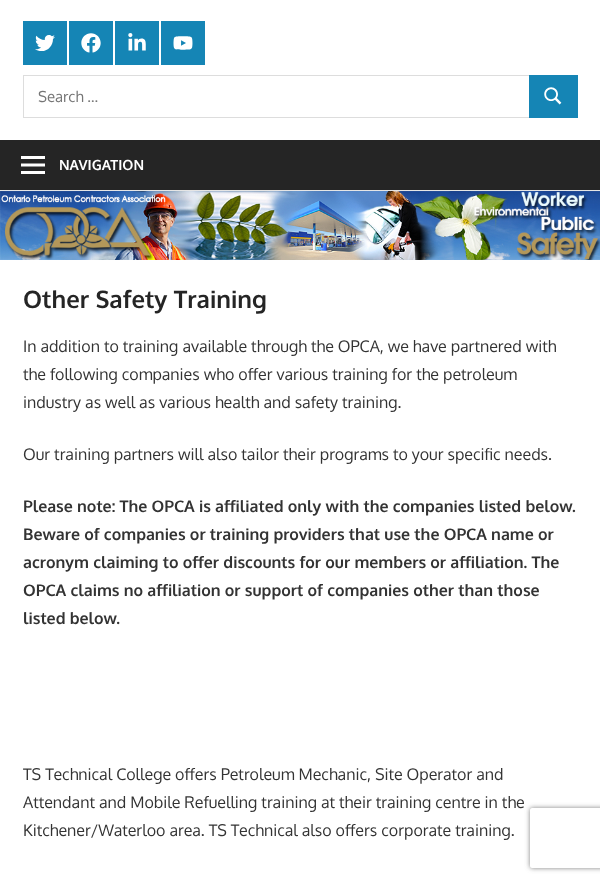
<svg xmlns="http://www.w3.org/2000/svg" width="600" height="882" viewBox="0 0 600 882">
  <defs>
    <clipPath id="clip1"><path d="M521 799H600V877H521ZM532 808H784C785 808 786 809 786 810V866C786 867 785 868 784 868H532C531 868 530 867 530 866V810C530 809 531 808 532 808Z" clip-rule="evenodd"/></clipPath>
    <filter id="blur1" x="-50%" y="-200%" width="200%" height="500%"><feGaussianBlur stdDeviation="2.5"/></filter>
  </defs>
  <rect width="100%" height="100%" fill="#e5e5e5"/>
  <rect x="0" y="0" width="600" height="140" fill="#ffffff"/>
  <rect x="23" y="21" width="44" height="44" fill="#1585b5"/>
  <image x="35" y="35" width="20" height="16" href="img1.png"/>
  <rect x="69" y="21" width="44" height="44" fill="#1585b5"/>
  <image x="81" y="33" width="20" height="20" href="img2.png"/>
  <rect x="115" y="21" width="44" height="44" fill="#1585b5"/>
  <image x="128" y="33" width="18" height="18" href="img3.png"/>
  <rect x="161" y="21" width="44" height="44" fill="#1585b5"/>
  <image x="173" y="36" width="20" height="14" href="img4.png"/>
  <rect x="23.5" y="75.5" width="506" height="42" fill="none" stroke="#dddddd"/>
  <text x="38" y="102" font-family="Oxygen" font-size="15" fill="#757575">Search …</text>
  <rect x="529" y="75" width="49" height="43" fill="#1585b5"/>
  <image x="544" y="87" width="18" height="18" href="img5.png"/>
  <rect x="0" y="140" width="600" height="50" fill="#252525"/>
  <image x="21" y="156" width="24" height="18" href="img6.png"/>
  <text x="59" y="170" font-family="Oxygen" font-size="14" font-weight="bold" fill="#ffffff">NAVIGATION</text>
  <image x="0" y="191" width="600" height="69" href="img7.png"/>
  <rect x="0" y="260" width="600" height="622" fill="#ffffff"/>
  <text x="23" y="308" font-family="Oxygen" font-size="24" font-weight="bold" fill="#252525">Other Safety Training</text>
  <text x="23" y="352" font-family="Oxygen" font-size="16" fill="#333333">In addition to training available through the OPCA, we have partnered with</text>
  <text x="23" y="380" font-family="Oxygen" font-size="16" fill="#333333">the following companies who offer various training for the petroleum</text>
  <text x="23" y="408" font-family="Oxygen" font-size="16" fill="#333333">industry as well as various health and safety training.</text>
  <text x="23" y="460" font-family="Oxygen" font-size="16" fill="#333333">Our training partners will also tailor their programs to your specific needs.</text>
  <text x="23" y="512" font-family="Oxygen" font-size="16" font-weight="bold" fill="#333333">Please note: The OPCA is affiliated only with the companies listed below.</text>
  <text x="23" y="540" font-family="Oxygen" font-size="16" font-weight="bold" fill="#333333">Beware of companies or training providers that use the OPCA name or</text>
  <text x="23" y="568" font-family="Oxygen" font-size="16" font-weight="bold" fill="#333333">acronym claiming to offer discounts for our members or affiliation. The</text>
  <text x="23" y="596" font-family="Oxygen" font-size="16" font-weight="bold" fill="#333333">OPCA claims no affiliation or support of companies other than those</text>
  <text x="23" y="624" font-family="Oxygen" font-size="16" font-weight="bold" fill="#333333">listed below.</text>
  <text x="23" y="780" font-family="Oxygen" font-size="16" fill="#333333">TS Technical College offers Petroleum Mechanic, Site Operator and</text>
  <text x="23" y="808" font-family="Oxygen" font-size="16" fill="#333333">Attendant and Mobile Refuelling training at their training centre in the</text>
  <text x="23" y="836" font-family="Oxygen" font-size="16" fill="#333333">Kitchener/Waterloo area. TS Technical also offers corporate training.</text>
  <g clip-path="url(#clip1)">
    <rect x="530" y="808" width="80" height="60" rx="2" fill="#808080" filter="url(#blur1)"/>
  </g>
</svg>
